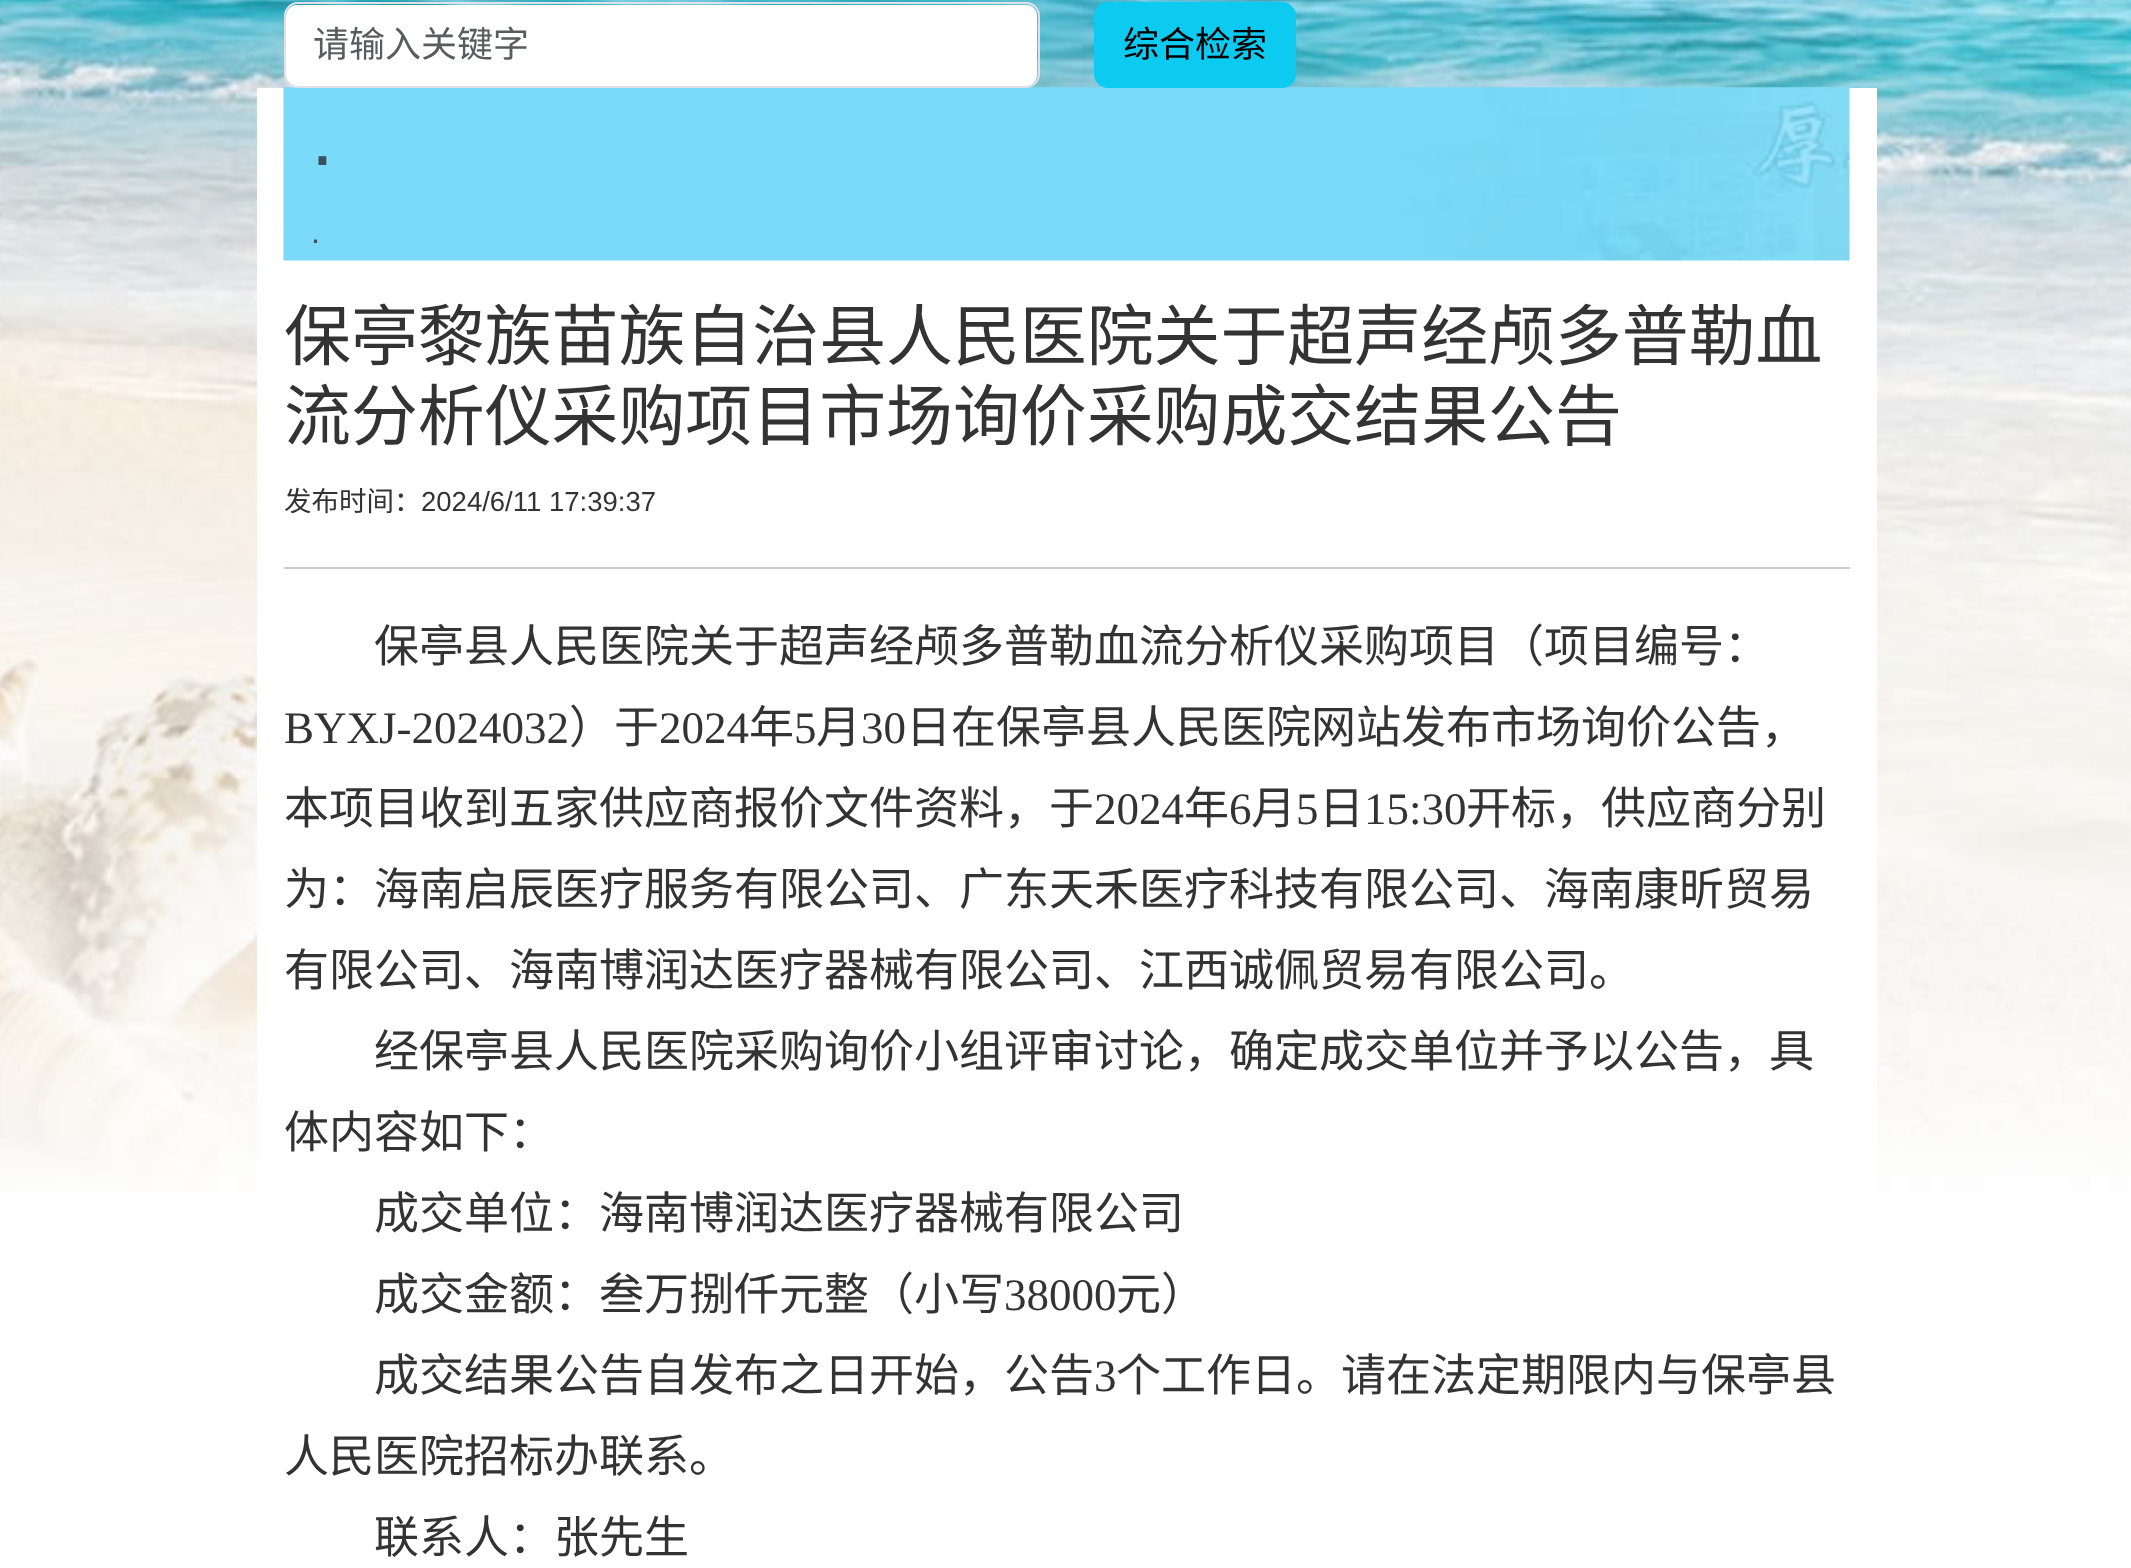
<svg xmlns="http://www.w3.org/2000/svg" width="2131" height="1568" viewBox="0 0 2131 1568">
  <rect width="100%" height="100%" fill="#ffffff"/>
  <image x="0" y="0" width="2131" height="1192" href="img1.png"/>
  <rect x="286" y="5" width="751" height="81" rx="11" fill="#ffffff"/>
  <rect x="257" y="88" width="1620" height="1104" fill="#ffffff"/>
  <image x="283" y="87" width="1567" height="174" href="img2.png"/>
  <rect x="285" y="3" width="754" height="84" rx="13" fill="none" stroke="#dee2e6" stroke-width="2"/>
  <text x="313" y="57" font-family="Noto Sans CJK SC" font-size="36" fill="#595c5f">请输入关键字</text>
  <rect x="1095" y="3" width="200" height="84" rx="13" fill="#0dcaf0" stroke="#0dcaf0" stroke-width="2"/>
  <text x="1123" y="57" font-family="Noto Sans CJK SC" font-size="36" fill="#000000">综合检索</text>
  <text x="311" y="165" font-family="Liberation Sans" font-size="82" fill="#38525d">.</text>
  <text x="311" y="243" font-family="Liberation Sans" font-size="32" fill="#38525d">.</text>
  <text x="284" y="360" font-family="Noto Sans CJK SC" font-size="66.9" fill="#333333">保亭黎族苗族自治县人民医院关于超声经颅多普勒血</text>
  <text x="284" y="440" font-family="Noto Sans CJK SC" font-size="66.9" fill="#333333">流分析仪采购项目市场询价采购成交结果公告</text>
  <text x="284" y="511" font-family="Noto Sans CJK SC" font-size="27.5" fill="#333333">发布时间：</text>
  <text x="421" y="511" font-family="Liberation Sans" font-size="27.5" fill="#333333">2024/6/11 17:39:37</text>
  <rect x="284" y="567" width="1566" height="2" fill="#cccccc"/>
  <text x="374" y="662" font-family="Noto Sans CJK SC" font-size="45" fill="#333333">保亭县人民医院关于超声经颅多普勒血流分析仪采购项目（项目编号：</text>
  <text x="284" y="743" font-family="Liberation Serif" font-size="45" fill="#333333">BYXJ-2024032</text>
  <text x="569" y="743" font-family="Noto Sans CJK SC" font-size="45" fill="#333333">）于</text>
  <text x="659" y="743" font-family="Liberation Serif" font-size="45" fill="#333333">2024</text>
  <text x="749" y="743" font-family="Noto Sans CJK SC" font-size="45" fill="#333333">年</text>
  <text x="794" y="743" font-family="Liberation Serif" font-size="45" fill="#333333">5</text>
  <text x="816" y="743" font-family="Noto Sans CJK SC" font-size="45" fill="#333333">月</text>
  <text x="861" y="743" font-family="Liberation Serif" font-size="45" fill="#333333">30</text>
  <text x="906" y="743" font-family="Noto Sans CJK SC" font-size="45" fill="#333333">日在保亭县人民医院网站发布市场询价公告，</text>
  <text x="284" y="824" font-family="Noto Sans CJK SC" font-size="45" fill="#333333">本项目收到五家供应商报价文件资料，于</text>
  <text x="1094" y="824" font-family="Liberation Serif" font-size="45" fill="#333333">2024</text>
  <text x="1184" y="824" font-family="Noto Sans CJK SC" font-size="45" fill="#333333">年</text>
  <text x="1229" y="824" font-family="Liberation Serif" font-size="45" fill="#333333">6</text>
  <text x="1251" y="824" font-family="Noto Sans CJK SC" font-size="45" fill="#333333">月</text>
  <text x="1296" y="824" font-family="Liberation Serif" font-size="45" fill="#333333">5</text>
  <text x="1319" y="824" font-family="Noto Sans CJK SC" font-size="45" fill="#333333">日</text>
  <text x="1364" y="824" font-family="Liberation Serif" font-size="45" fill="#333333">15:30</text>
  <text x="1466" y="824" font-family="Noto Sans CJK SC" font-size="45" fill="#333333">开标，供应商分别</text>
  <text x="284" y="905" font-family="Noto Sans CJK SC" font-size="45" fill="#333333">为：海南启辰医疗服务有限公司、广东天禾医疗科技有限公司、海南康昕贸易</text>
  <text x="284" y="986" font-family="Noto Sans CJK SC" font-size="45" fill="#333333">有限公司、海南博润达医疗器械有限公司、江西诚佩贸易有限公司。</text>
  <text x="374" y="1067" font-family="Noto Sans CJK SC" font-size="45" fill="#333333">经保亭县人民医院采购询价小组评审讨论，确定成交单位并予以公告，具</text>
  <text x="284" y="1148" font-family="Noto Sans CJK SC" font-size="45" fill="#333333">体内容如下：</text>
  <text x="374" y="1229" font-family="Noto Sans CJK SC" font-size="45" fill="#333333">成交单位：海南博润达医疗器械有限公司</text>
  <text x="374" y="1310" font-family="Noto Sans CJK SC" font-size="45" fill="#333333">成交金额：叁万捌仟元整（小写</text>
  <text x="1004" y="1310" font-family="Liberation Serif" font-size="45" fill="#333333">38000</text>
  <text x="1116" y="1310" font-family="Noto Sans CJK SC" font-size="45" fill="#333333">元）</text>
  <text x="374" y="1391" font-family="Noto Sans CJK SC" font-size="45" fill="#333333">成交结果公告自发布之日开始，公告</text>
  <text x="1094" y="1391" font-family="Liberation Serif" font-size="45" fill="#333333">3</text>
  <text x="1116" y="1391" font-family="Noto Sans CJK SC" font-size="45" fill="#333333">个工作日。请在法定期限内与保亭县</text>
  <text x="284" y="1472" font-family="Noto Sans CJK SC" font-size="45" fill="#333333">人民医院招标办联系。</text>
  <text x="374" y="1553" font-family="Noto Sans CJK SC" font-size="45" fill="#333333">联系人：张先生</text>
</svg>
